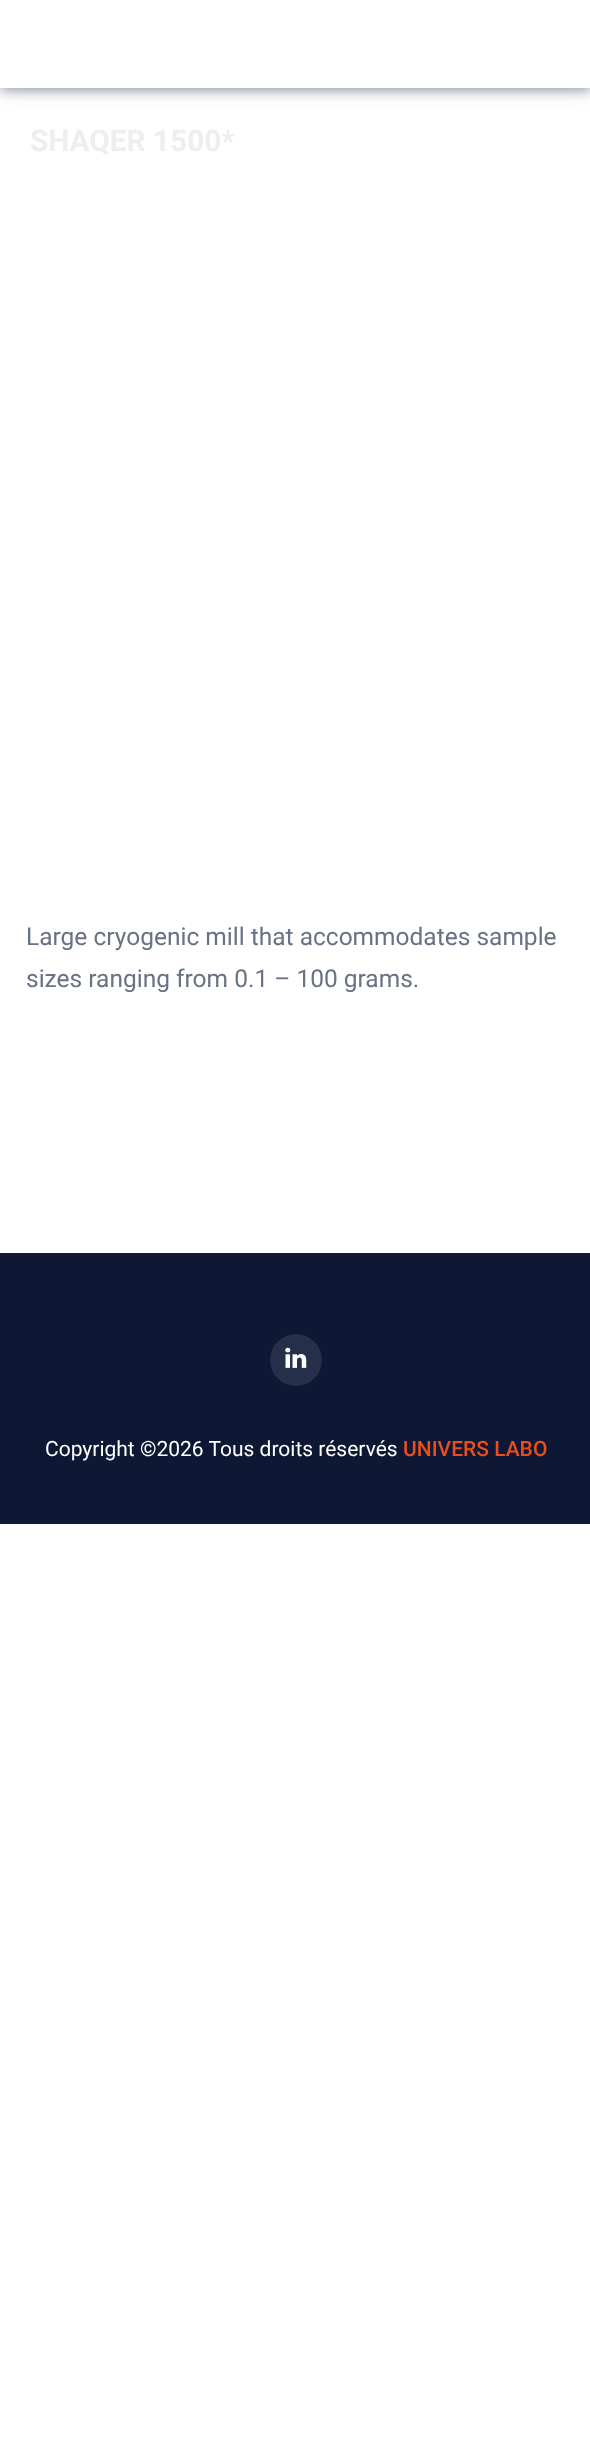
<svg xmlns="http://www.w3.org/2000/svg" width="590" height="2449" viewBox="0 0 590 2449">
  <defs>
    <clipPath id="clip1"><path d="M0 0H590V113H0ZM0 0H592V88H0Z" clip-rule="evenodd"/></clipPath>
    <filter id="blur1" x="-50%" y="-200%" width="200%" height="500%"><feGaussianBlur stdDeviation="8"/></filter>
  </defs>
  <rect width="100%" height="100%" fill="#ffffff"/>
  <g clip-path="url(#clip1)">
    <rect x="0" y="0" width="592" height="88" fill="#687284" filter="url(#blur1)"/>
  </g>
  <text x="30" y="151" font-family="Roboto" font-size="29.75" font-weight="bold" fill="#eeeeee">SHAQER 1500*</text>
  <text x="26" y="945" font-family="Roboto" font-size="24.5" fill="#687284">Large cryogenic mill that accommodates sample</text>
  <text x="26" y="987" font-family="Roboto" font-size="24.5" fill="#687284">sizes ranging from 0.1 – 100 grams.</text>
  <rect x="0" y="1253" width="590" height="271" fill="#0e1835"/>
  <circle cx="296" cy="1360" r="26" fill="#262f49"/>
  <image x="285" y="1347" width="22" height="21" href="img1.png"/>
  <text x="45" y="1456" font-family="Roboto" font-size="21" fill="#ffffff">Copyright ©2026 Tous droits réservés</text>
  <text x="403" y="1456" font-family="Roboto" font-size="21" font-weight="500" fill="#e94e1b">UNIVERS LABO</text>
</svg>
